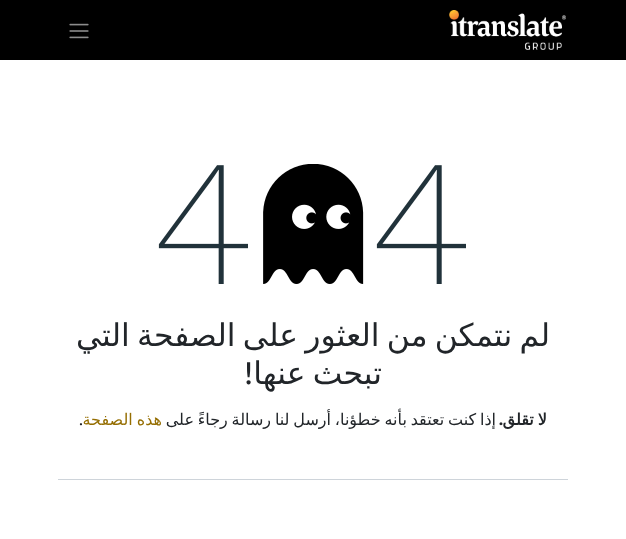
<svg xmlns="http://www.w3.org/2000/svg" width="626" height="539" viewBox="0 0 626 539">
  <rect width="100%" height="100%" fill="#ffffff"/>
  <rect x="0" y="0" width="626" height="60" fill="#000000"/>
  <image x="449" y="10" width="117" height="40" href="img1.png"/>
  <image x="69" y="23" width="20" height="16" href="img2.png"/>
  <image x="158" y="164" width="308" height="120" href="img3.png"/>
  <text x="550" y="346" word-spacing="-2.75" font-family="DejaVu Sans" font-size="31.4" direction="rtl" fill="#212529">لم نتمكن من العثور على الصفحة التي</text>
  <text x="382" y="384" word-spacing="-2.75" font-family="DejaVu Sans" font-size="31.4" direction="rtl" fill="#212529">تبحث عنها</text>
  <text x="253" y="384" font-family="Ubuntu" font-size="31.4" direction="rtl" fill="#212529">!</text>
  <text x="547" y="425" word-spacing="-1" font-family="DejaVu Sans" font-size="16" font-weight="bold" direction="rtl" fill="#212529">لا تقلق</text>
  <text x="503" y="425" font-family="Ubuntu" font-size="16" font-weight="bold" direction="rtl" fill="#212529">.</text>
  <text x="496" y="425" word-spacing="-1.25" font-family="DejaVu Sans" font-size="16" direction="rtl" fill="#212529">إذا كنت تعتقد بأنه خطؤنا، أرسل لنا رسالة رجاءً على</text>
  <text x="162" y="425" word-spacing="-1" font-family="DejaVu Sans" font-size="16" direction="rtl" fill="#956e02">هذه الصفحة</text>
  <text x="79" y="425" font-family="Ubuntu" font-size="16" fill="#212529">.</text>
  <rect x="58" y="479" width="510" height="1" fill="#ced4da"/>
</svg>
